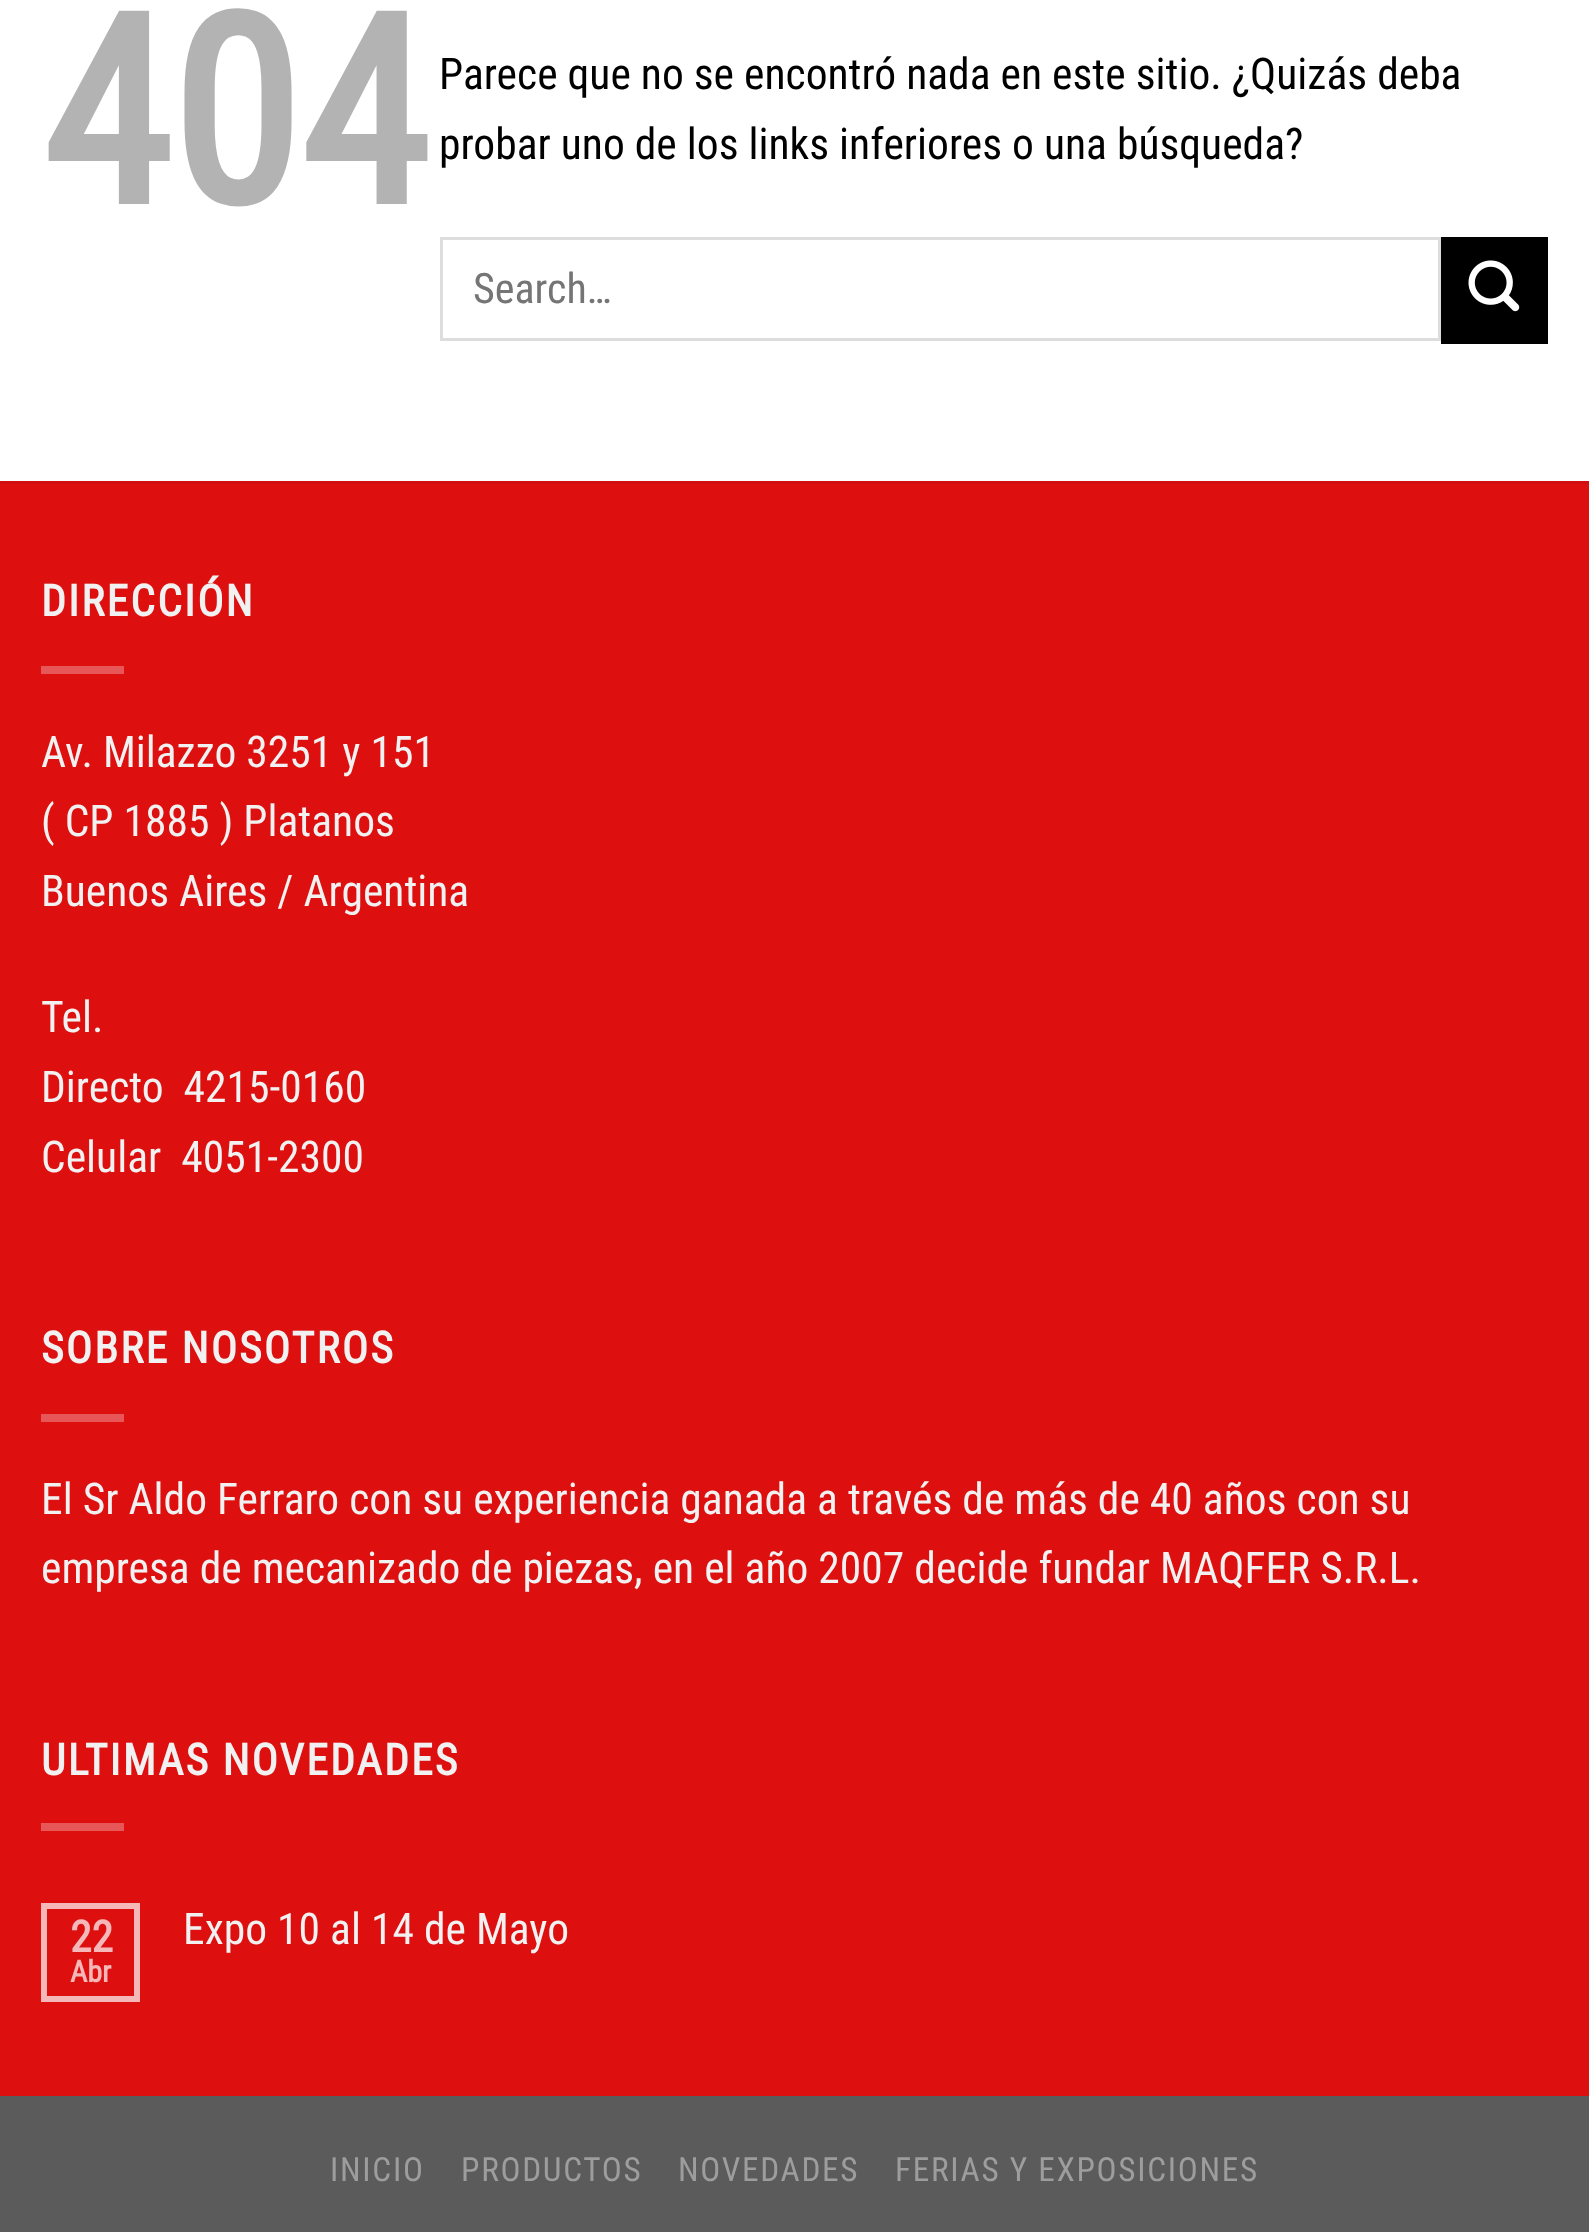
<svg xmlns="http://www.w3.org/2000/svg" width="1589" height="2232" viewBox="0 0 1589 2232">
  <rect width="100%" height="100%" fill="#ffffff"/>
  <text x="41" y="204" font-family="Roboto Condensed" font-size="261" font-weight="bold" fill="#b3b3b3">404</text>
  <text x="439" y="89" font-family="Roboto Condensed" font-size="43.55" fill="#000000">Parece que no se encontró nada en este sitio. ¿Quizás deba</text>
  <text x="439" y="159" font-family="Roboto Condensed" font-size="43.55" fill="#000000">probar uno de los links inferiores o una búsqueda?</text>
  <rect x="441.5" y="238.5" width="998" height="101" fill="none" stroke="#dddddd" stroke-width="3"/>
  <text x="473" y="303" font-family="Roboto Condensed" font-size="42" fill="#757575">Search…</text>
  <rect x="1441" y="237" width="107" height="107" fill="#000000"/>
  <image x="1468" y="260" width="52" height="52" href="img1.png"/>
  <rect x="0" y="484" width="1589" height="1612" fill="#dd0f0f"/>
  <rect x="0" y="481" width="1589" height="3" fill="#d20e0e"/>
  <text x="41" y="616" font-family="Roboto Condensed" font-size="43.55" font-weight="bold" letter-spacing="2.2" fill="#f1f1f1">DIRECCIÓN</text>
  <rect x="41" y="666" width="83" height="8" fill="#e75757"/>
  <text x="41" y="767" font-family="Roboto Condensed" font-size="43.55" fill="#f1f1f1">Av. Milazzo 3251 y 151</text>
  <text x="41" y="836" font-family="Roboto Condensed" font-size="43.55" fill="#f1f1f1">( CP 1885 ) Platanos</text>
  <text x="41" y="906" font-family="Roboto Condensed" font-size="43.55" fill="#f1f1f1">Buenos Aires / Argentina</text>
  <text x="41" y="1032" font-family="Roboto Condensed" font-size="43.55" fill="#f1f1f1">Tel.</text>
  <text x="41" y="1102" font-family="Roboto Condensed" font-size="43.55" fill="#f1f1f1" xml:space="preserve">Directo  4215-0160</text>
  <text x="41" y="1172" font-family="Roboto Condensed" font-size="43.55" fill="#f1f1f1" xml:space="preserve">Celular  4051-2300</text>
  <text x="41" y="1363" font-family="Roboto Condensed" font-size="43.55" font-weight="bold" letter-spacing="2.2" fill="#f1f1f1">SOBRE NOSOTROS</text>
  <rect x="41" y="1414" width="83" height="8" fill="#e75757"/>
  <text x="41" y="1514" font-family="Roboto Condensed" font-size="43.55" fill="#f1f1f1">El Sr Aldo Ferraro con su experiencia ganada a través de más de 40 años con su</text>
  <text x="41" y="1583" font-family="Roboto Condensed" font-size="43.55" fill="#f1f1f1">empresa de mecanizado de piezas, en el año 2007 decide fundar MAQFER S.R.L.</text>
  <text x="41" y="1775" font-family="Roboto Condensed" font-size="43.55" font-weight="bold" letter-spacing="2.2" fill="#f1f1f1">ULTIMAS NOVEDADES</text>
  <rect x="41" y="1823" width="83" height="8" fill="#e75757"/>
  <rect x="44" y="1906" width="93" height="93" fill="none" stroke="#f5b7b7" stroke-width="6"/>
  <text x="70" y="1952" font-family="Roboto Condensed" font-size="43.55" font-weight="bold" fill="#f5b7b7">22</text>
  <text x="70" y="1982" font-family="Roboto Condensed" font-size="30" font-weight="bold" fill="#f5b7b7">Abr</text>
  <text x="183" y="1944" font-family="Roboto Condensed" font-size="43.55" fill="#f1f1f1">Expo 10 al 14 de Mayo</text>
  <rect x="0" y="2096" width="1589" height="136" fill="#5b5b5b"/>
  <text x="330" y="2181" font-family="Roboto Condensed" font-size="33.25" letter-spacing="1.7" fill="#9d9d9d">INICIO</text>
  <text x="461" y="2181" font-family="Roboto Condensed" font-size="33.25" letter-spacing="1.7" fill="#9d9d9d">PRODUCTOS</text>
  <text x="678" y="2181" font-family="Roboto Condensed" font-size="33.25" letter-spacing="1.7" fill="#9d9d9d">NOVEDADES</text>
  <text x="895" y="2181" font-family="Roboto Condensed" font-size="33.25" letter-spacing="1.7" fill="#9d9d9d">FERIAS Y EXPOSICIONES</text>
</svg>
